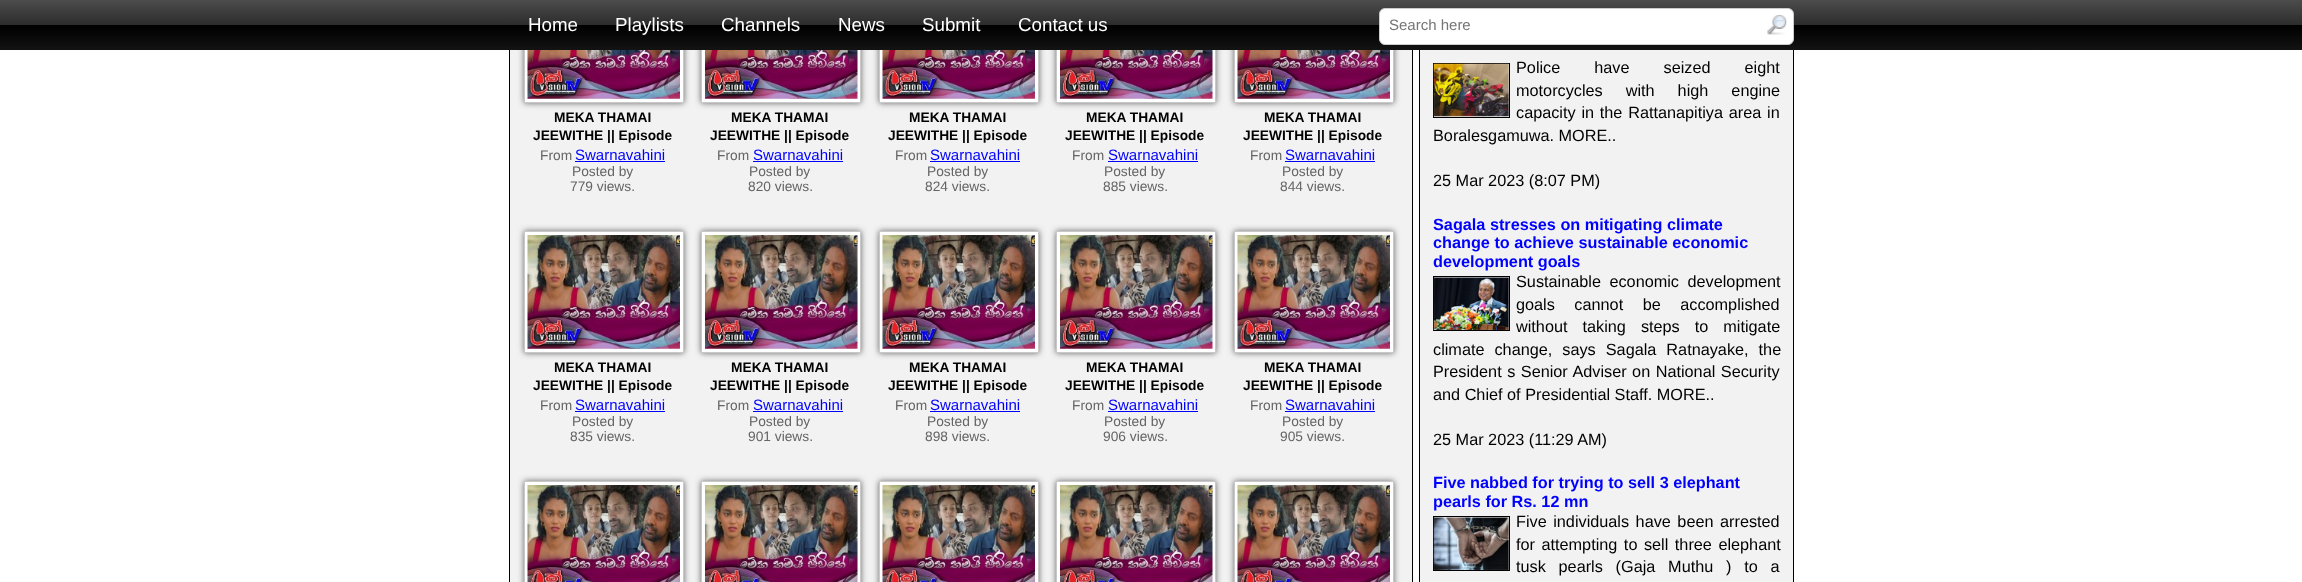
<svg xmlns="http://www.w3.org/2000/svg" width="2302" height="582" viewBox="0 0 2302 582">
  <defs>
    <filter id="blur1" x="-50%" y="-200%" width="200%" height="500%"><feGaussianBlur stdDeviation="3"/></filter>
    <linearGradient id="g1" gradientUnits="userSpaceOnUse" x1="1151" y1="0" x2="1151" y2="50"><stop offset="0" stop-color="#4c4c4c"/><stop offset="0.5" stop-color="#2c2c2c"/><stop offset="0.51" stop-color="#000000"/><stop offset="1" stop-color="#131313"/></linearGradient>
  </defs>
  <rect width="100%" height="100%" fill="#ffffff"/>
  <rect x="510" y="50" width="902" height="532" fill="#f2f2f2"/>
  <rect x="509.5" y="-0.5" width="903" height="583" fill="none" stroke="#000000"/>
  <rect x="524" y="-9" width="160" height="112" fill="#666666" filter="url(#blur1)"/>
  <rect x="525" y="50" width="158" height="52" fill="#ffffff"/>
  <rect x="524.5" y="-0.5" width="159" height="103" fill="none" stroke="#c8c8c8"/>
  <rect x="701" y="-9" width="160" height="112" fill="#666666" filter="url(#blur1)"/>
  <rect x="702" y="50" width="158" height="52" fill="#ffffff"/>
  <rect x="701.5" y="-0.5" width="159" height="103" fill="none" stroke="#c8c8c8"/>
  <rect x="879" y="-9" width="160" height="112" fill="#666666" filter="url(#blur1)"/>
  <rect x="880" y="50" width="158" height="52" fill="#ffffff"/>
  <rect x="879.5" y="-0.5" width="159" height="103" fill="none" stroke="#c8c8c8"/>
  <rect x="1056" y="-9" width="160" height="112" fill="#666666" filter="url(#blur1)"/>
  <rect x="1057" y="50" width="158" height="52" fill="#ffffff"/>
  <rect x="1056.5" y="-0.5" width="159" height="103" fill="none" stroke="#c8c8c8"/>
  <rect x="1234" y="-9" width="160" height="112" fill="#666666" filter="url(#blur1)"/>
  <rect x="1235" y="50" width="158" height="52" fill="#ffffff"/>
  <rect x="1234.5" y="-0.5" width="159" height="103" fill="none" stroke="#c8c8c8"/>
  <rect x="1420" y="50" width="373" height="532" fill="#f2f2f2"/>
  <rect x="1419.5" y="25.5" width="374" height="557" fill="none" stroke="#000000"/>
  <rect x="0" y="0" width="2302" height="50" fill="url(#g1)"/>
  <text x="528" y="31" font-family="Liberation Sans" font-size="18.75" fill="#ffffff">Home</text>
  <text x="615" y="31" font-family="Liberation Sans" font-size="18.75" fill="#ffffff">Playlists</text>
  <text x="721" y="31" font-family="Liberation Sans" font-size="18.75" fill="#ffffff">Channels</text>
  <text x="838" y="31" font-family="Liberation Sans" font-size="18.75" fill="#ffffff">News</text>
  <text x="922" y="31" font-family="Liberation Sans" font-size="18.75" fill="#ffffff">Submit</text>
  <text x="1018" y="31" font-family="Liberation Sans" font-size="18.75" fill="#ffffff">Contact us</text>
  <rect x="1379.5" y="8.5" width="414" height="36" rx="5.5" fill="#ffffff" stroke="#cccccc"/>
  <text x="1389" y="30" font-family="Liberation Sans" font-size="15" fill="#757575">Search here</text>
  <image x="1767" y="15" width="20" height="20" href="img1.png"/>
  <image x="527" y="50" width="153" height="49" href="img2.png"/>
  <text x="554" y="122" font-family="Liberation Sans" font-size="13.75" font-weight="bold" fill="#000000">MEKA THAMAI</text>
  <text x="533" y="140" font-family="Liberation Sans" font-size="13.75" font-weight="bold" fill="#000000">JEEWITHE || Episode</text>
  <text x="540" y="160" font-family="Liberation Sans" font-size="13.75" fill="#646464">From</text>
  <text x="575" y="160" font-family="Liberation Sans" font-size="15" fill="#0000ff">Swarnavahini</text>
  <rect x="575" y="161" width="90" height="1" fill="#0000ff"/>
  <text x="572" y="176" font-family="Liberation Sans" font-size="13.75" fill="#646464">Posted by</text>
  <text x="570" y="191" font-family="Liberation Sans" font-size="13.75" fill="#646464">779 views.</text>
  <image x="705" y="50" width="153" height="49" href="img3.png"/>
  <text x="731" y="122" font-family="Liberation Sans" font-size="13.75" font-weight="bold" fill="#000000">MEKA THAMAI</text>
  <text x="710" y="140" font-family="Liberation Sans" font-size="13.75" font-weight="bold" fill="#000000">JEEWITHE || Episode</text>
  <text x="717" y="160" font-family="Liberation Sans" font-size="13.75" fill="#646464">From</text>
  <text x="753" y="160" font-family="Liberation Sans" font-size="15" fill="#0000ff">Swarnavahini</text>
  <rect x="753" y="161" width="90" height="1" fill="#0000ff"/>
  <text x="749" y="176" font-family="Liberation Sans" font-size="13.75" fill="#646464">Posted by</text>
  <text x="748" y="191" font-family="Liberation Sans" font-size="13.75" fill="#646464">820 views.</text>
  <image x="882" y="50" width="153" height="49" href="img2.png"/>
  <text x="909" y="122" font-family="Liberation Sans" font-size="13.75" font-weight="bold" fill="#000000">MEKA THAMAI</text>
  <text x="888" y="140" font-family="Liberation Sans" font-size="13.75" font-weight="bold" fill="#000000">JEEWITHE || Episode</text>
  <text x="895" y="160" font-family="Liberation Sans" font-size="13.75" fill="#646464">From</text>
  <text x="930" y="160" font-family="Liberation Sans" font-size="15" fill="#0000ff">Swarnavahini</text>
  <rect x="930" y="161" width="90" height="1" fill="#0000ff"/>
  <text x="927" y="176" font-family="Liberation Sans" font-size="13.75" fill="#646464">Posted by</text>
  <text x="925" y="191" font-family="Liberation Sans" font-size="13.75" fill="#646464">824 views.</text>
  <image x="1060" y="50" width="153" height="49" href="img3.png"/>
  <text x="1086" y="122" font-family="Liberation Sans" font-size="13.75" font-weight="bold" fill="#000000">MEKA THAMAI</text>
  <text x="1065" y="140" font-family="Liberation Sans" font-size="13.75" font-weight="bold" fill="#000000">JEEWITHE || Episode</text>
  <text x="1072" y="160" font-family="Liberation Sans" font-size="13.75" fill="#646464">From</text>
  <text x="1108" y="160" font-family="Liberation Sans" font-size="15" fill="#0000ff">Swarnavahini</text>
  <rect x="1108" y="161" width="90" height="1" fill="#0000ff"/>
  <text x="1104" y="176" font-family="Liberation Sans" font-size="13.75" fill="#646464">Posted by</text>
  <text x="1103" y="191" font-family="Liberation Sans" font-size="13.75" fill="#646464">885 views.</text>
  <image x="1237" y="50" width="153" height="49" href="img2.png"/>
  <text x="1264" y="122" font-family="Liberation Sans" font-size="13.75" font-weight="bold" fill="#000000">MEKA THAMAI</text>
  <text x="1243" y="140" font-family="Liberation Sans" font-size="13.75" font-weight="bold" fill="#000000">JEEWITHE || Episode</text>
  <text x="1250" y="160" font-family="Liberation Sans" font-size="13.75" fill="#646464">From</text>
  <text x="1285" y="160" font-family="Liberation Sans" font-size="15" fill="#0000ff">Swarnavahini</text>
  <rect x="1285" y="161" width="90" height="1" fill="#0000ff"/>
  <text x="1282" y="176" font-family="Liberation Sans" font-size="13.75" fill="#646464">Posted by</text>
  <text x="1280" y="191" font-family="Liberation Sans" font-size="13.75" fill="#646464">844 views.</text>
  <rect x="524" y="231" width="160" height="122" fill="#666666" filter="url(#blur1)"/>
  <rect x="524.5" y="231.5" width="159" height="121" fill="#ffffff" stroke="#c8c8c8"/>
  <image x="527" y="235" width="153" height="114" href="img4.png"/>
  <text x="554" y="372" font-family="Liberation Sans" font-size="13.75" font-weight="bold" fill="#000000">MEKA THAMAI</text>
  <text x="533" y="390" font-family="Liberation Sans" font-size="13.75" font-weight="bold" fill="#000000">JEEWITHE || Episode</text>
  <text x="540" y="410" font-family="Liberation Sans" font-size="13.75" fill="#646464">From</text>
  <text x="575" y="410" font-family="Liberation Sans" font-size="15" fill="#0000ff">Swarnavahini</text>
  <rect x="575" y="411" width="90" height="1" fill="#0000ff"/>
  <text x="572" y="426" font-family="Liberation Sans" font-size="13.75" fill="#646464">Posted by</text>
  <text x="570" y="441" font-family="Liberation Sans" font-size="13.75" fill="#646464">835 views.</text>
  <rect x="701" y="231" width="160" height="122" fill="#666666" filter="url(#blur1)"/>
  <rect x="701.5" y="231.5" width="159" height="121" fill="#ffffff" stroke="#c8c8c8"/>
  <image x="705" y="235" width="153" height="114" href="img5.png"/>
  <text x="731" y="372" font-family="Liberation Sans" font-size="13.75" font-weight="bold" fill="#000000">MEKA THAMAI</text>
  <text x="710" y="390" font-family="Liberation Sans" font-size="13.75" font-weight="bold" fill="#000000">JEEWITHE || Episode</text>
  <text x="717" y="410" font-family="Liberation Sans" font-size="13.75" fill="#646464">From</text>
  <text x="753" y="410" font-family="Liberation Sans" font-size="15" fill="#0000ff">Swarnavahini</text>
  <rect x="753" y="411" width="90" height="1" fill="#0000ff"/>
  <text x="749" y="426" font-family="Liberation Sans" font-size="13.75" fill="#646464">Posted by</text>
  <text x="748" y="441" font-family="Liberation Sans" font-size="13.75" fill="#646464">901 views.</text>
  <rect x="879" y="231" width="160" height="122" fill="#666666" filter="url(#blur1)"/>
  <rect x="879.5" y="231.5" width="159" height="121" fill="#ffffff" stroke="#c8c8c8"/>
  <image x="882" y="235" width="153" height="114" href="img4.png"/>
  <text x="909" y="372" font-family="Liberation Sans" font-size="13.75" font-weight="bold" fill="#000000">MEKA THAMAI</text>
  <text x="888" y="390" font-family="Liberation Sans" font-size="13.75" font-weight="bold" fill="#000000">JEEWITHE || Episode</text>
  <text x="895" y="410" font-family="Liberation Sans" font-size="13.75" fill="#646464">From</text>
  <text x="930" y="410" font-family="Liberation Sans" font-size="15" fill="#0000ff">Swarnavahini</text>
  <rect x="930" y="411" width="90" height="1" fill="#0000ff"/>
  <text x="927" y="426" font-family="Liberation Sans" font-size="13.75" fill="#646464">Posted by</text>
  <text x="925" y="441" font-family="Liberation Sans" font-size="13.75" fill="#646464">898 views.</text>
  <rect x="1056" y="231" width="160" height="122" fill="#666666" filter="url(#blur1)"/>
  <rect x="1056.5" y="231.5" width="159" height="121" fill="#ffffff" stroke="#c8c8c8"/>
  <image x="1060" y="235" width="153" height="114" href="img5.png"/>
  <text x="1086" y="372" font-family="Liberation Sans" font-size="13.75" font-weight="bold" fill="#000000">MEKA THAMAI</text>
  <text x="1065" y="390" font-family="Liberation Sans" font-size="13.75" font-weight="bold" fill="#000000">JEEWITHE || Episode</text>
  <text x="1072" y="410" font-family="Liberation Sans" font-size="13.75" fill="#646464">From</text>
  <text x="1108" y="410" font-family="Liberation Sans" font-size="15" fill="#0000ff">Swarnavahini</text>
  <rect x="1108" y="411" width="90" height="1" fill="#0000ff"/>
  <text x="1104" y="426" font-family="Liberation Sans" font-size="13.75" fill="#646464">Posted by</text>
  <text x="1103" y="441" font-family="Liberation Sans" font-size="13.75" fill="#646464">906 views.</text>
  <rect x="1234" y="231" width="160" height="122" fill="#666666" filter="url(#blur1)"/>
  <rect x="1234.5" y="231.5" width="159" height="121" fill="#ffffff" stroke="#c8c8c8"/>
  <image x="1237" y="235" width="153" height="114" href="img4.png"/>
  <text x="1264" y="372" font-family="Liberation Sans" font-size="13.75" font-weight="bold" fill="#000000">MEKA THAMAI</text>
  <text x="1243" y="390" font-family="Liberation Sans" font-size="13.75" font-weight="bold" fill="#000000">JEEWITHE || Episode</text>
  <text x="1250" y="410" font-family="Liberation Sans" font-size="13.75" fill="#646464">From</text>
  <text x="1285" y="410" font-family="Liberation Sans" font-size="15" fill="#0000ff">Swarnavahini</text>
  <rect x="1285" y="411" width="90" height="1" fill="#0000ff"/>
  <text x="1282" y="426" font-family="Liberation Sans" font-size="13.75" fill="#646464">Posted by</text>
  <text x="1280" y="441" font-family="Liberation Sans" font-size="13.75" fill="#646464">905 views.</text>
  <rect x="524" y="481" width="160" height="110" fill="#666666" filter="url(#blur1)"/>
  <rect x="524.5" y="481.5" width="159" height="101" fill="#ffffff" stroke="#c8c8c8"/>
  <image x="527" y="485" width="153" height="97" href="img6.png"/>
  <rect x="701" y="481" width="160" height="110" fill="#666666" filter="url(#blur1)"/>
  <rect x="701.5" y="481.5" width="159" height="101" fill="#ffffff" stroke="#c8c8c8"/>
  <image x="705" y="485" width="153" height="97" href="img7.png"/>
  <rect x="879" y="481" width="160" height="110" fill="#666666" filter="url(#blur1)"/>
  <rect x="879.5" y="481.5" width="159" height="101" fill="#ffffff" stroke="#c8c8c8"/>
  <image x="882" y="485" width="153" height="97" href="img6.png"/>
  <rect x="1056" y="481" width="160" height="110" fill="#666666" filter="url(#blur1)"/>
  <rect x="1056.5" y="481.5" width="159" height="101" fill="#ffffff" stroke="#c8c8c8"/>
  <image x="1060" y="485" width="153" height="97" href="img7.png"/>
  <rect x="1234" y="481" width="160" height="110" fill="#666666" filter="url(#blur1)"/>
  <rect x="1234.5" y="481.5" width="159" height="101" fill="#ffffff" stroke="#c8c8c8"/>
  <image x="1237" y="485" width="153" height="97" href="img6.png"/>
  <rect x="1433.5" y="63.5" width="76" height="54" fill="none" stroke="#000000"/>
  <image x="1433" y="63" width="76" height="54" href="img8.png"/>
  <text x="1516" y="73" word-spacing="29.5" font-family="Liberation Sans" font-size="16.25" fill="#000000">Police have seized eight</text>
  <text x="1516" y="96" word-spacing="18.5" font-family="Liberation Sans" font-size="16.25" fill="#000000">motorcycles with high engine</text>
  <text x="1516" y="118" word-spacing="1.25" font-family="Liberation Sans" font-size="16.25" fill="#000000">capacity in the Rattanapitiya area in</text>
  <text x="1433" y="141" font-family="Liberation Sans" font-size="16.25" fill="#000000">Boralesgamuwa. MORE..</text>
  <text x="1433" y="186" font-family="Liberation Sans" font-size="16.25" fill="#000000">25 Mar 2023 (8:07 PM)</text>
  <text x="1433" y="230" font-family="Liberation Sans" font-size="16.25" font-weight="bold" fill="#0000ff">Sagala stresses on mitigating climate</text>
  <text x="1433" y="248" font-family="Liberation Sans" font-size="16.25" font-weight="bold" fill="#0000ff">change to achieve sustainable economic</text>
  <text x="1433" y="267" font-family="Liberation Sans" font-size="16.25" font-weight="bold" fill="#0000ff">development goals</text>
  <rect x="1433.5" y="276.5" width="76" height="54" fill="none" stroke="#000000"/>
  <image x="1433" y="277" width="76" height="53" href="img9.png"/>
  <text x="1516" y="287" word-spacing="4" font-family="Liberation Sans" font-size="16.25" fill="#000000">Sustainable economic development</text>
  <text x="1516" y="310" word-spacing="15" font-family="Liberation Sans" font-size="16.25" fill="#000000">goals cannot be accomplished</text>
  <text x="1516" y="332" word-spacing="10.5" font-family="Liberation Sans" font-size="16.25" fill="#000000">without taking steps to mitigate</text>
  <text x="1433" y="355" word-spacing="5.5" font-family="Liberation Sans" font-size="16.25" fill="#000000">climate change, says Sagala Ratnayake, the</text>
  <text x="1433" y="377" word-spacing="1" font-family="Liberation Sans" font-size="16.25" fill="#000000">President s Senior Adviser on National Security</text>
  <text x="1433" y="400" font-family="Liberation Sans" font-size="16.25" fill="#000000">and Chief of Presidential Staff. MORE..</text>
  <text x="1433" y="445" font-family="Liberation Sans" font-size="16.25" fill="#000000">25 Mar 2023 (11:29 AM)</text>
  <text x="1433" y="488" font-family="Liberation Sans" font-size="16.25" font-weight="bold" fill="#0000ff">Five nabbed for trying to sell 3 elephant</text>
  <text x="1433" y="507" font-family="Liberation Sans" font-size="16.25" font-weight="bold" fill="#0000ff">pearls for Rs. 12 mn</text>
  <rect x="1433.5" y="516.5" width="76" height="54" fill="none" stroke="#000000"/>
  <image x="1433" y="517" width="76" height="53" href="img10.png"/>
  <text x="1516" y="527" word-spacing="2" font-family="Liberation Sans" font-size="16.25" fill="#000000">Five individuals have been arrested</text>
  <text x="1516" y="550" word-spacing="2" font-family="Liberation Sans" font-size="16.25" fill="#000000">for attempting to sell three elephant</text>
  <text x="1516" y="572" word-spacing="8.25" font-family="Liberation Sans" font-size="16.25" fill="#000000">tusk pearls (Gaja Muthu ) to a</text>
</svg>
